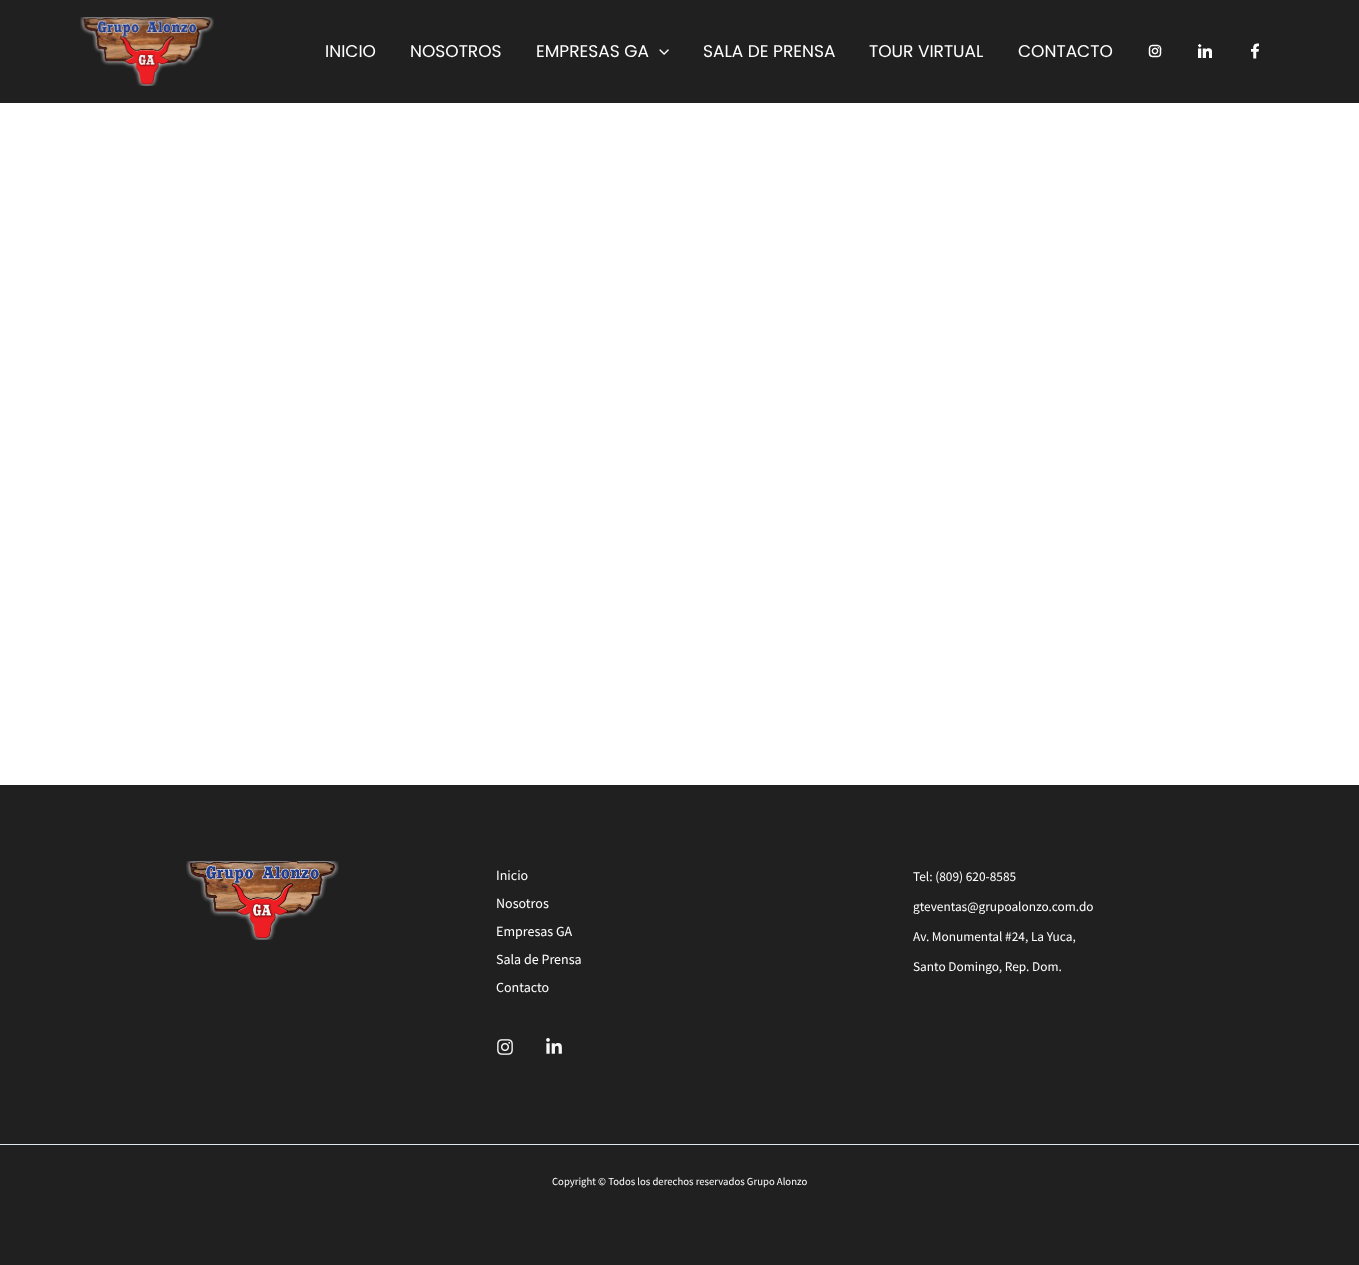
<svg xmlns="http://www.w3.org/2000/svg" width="1359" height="1265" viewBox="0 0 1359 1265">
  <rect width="100%" height="100%" fill="#ffffff"/>
  <rect x="0" y="0" width="1359" height="103" fill="#202020"/>
  <image x="80" y="17" width="134" height="69" href="img1.png"/>
  <text x="325" y="57" font-family="Poppins" font-size="17" fill="#ffffff">INICIO</text>
  <text x="410" y="57" font-family="Poppins" font-size="17" fill="#ffffff">NOSOTROS</text>
  <text x="536" y="57" font-family="Poppins" font-size="17" fill="#ffffff">EMPRESAS GA</text>
  <image x="659" y="49" width="10" height="6" href="img2.png"/>
  <text x="703" y="57" font-family="Poppins" font-size="17" fill="#ffffff">SALA DE PRENSA</text>
  <text x="869" y="57" font-family="Poppins" font-size="17" fill="#ffffff">TOUR VIRTUAL</text>
  <text x="1018" y="57" font-family="Poppins" font-size="17" fill="#ffffff">CONTACTO</text>
  <image x="1148" y="44" width="14" height="14" href="img3.png"/>
  <image x="1198" y="44" width="14" height="14" href="img4.png"/>
  <image x="1251" y="43" width="8" height="16" href="img5.png"/>
  <rect x="0" y="785" width="1359" height="480" fill="#202020"/>
  <image x="186" y="861" width="153" height="79" href="img6.png"/>
  <text x="496" y="880" font-family="Source Sans Pro" font-size="14" fill="#ffffff">Inicio</text>
  <text x="496" y="908" font-family="Source Sans Pro" font-size="14" fill="#ffffff">Nosotros</text>
  <text x="496" y="936" font-family="Source Sans Pro" font-size="14" fill="#ffffff">Empresas GA</text>
  <text x="496" y="964" font-family="Source Sans Pro" font-size="14" fill="#ffffff">Sala de Prensa</text>
  <text x="496" y="992" font-family="Source Sans Pro" font-size="14" fill="#ffffff">Contacto</text>
  <image x="497" y="1039" width="16" height="16" href="img7.png"/>
  <image x="546" y="1038" width="16" height="16" href="img8.png"/>
  <text x="913" y="881" font-family="Source Sans Pro" font-size="13.3" fill="#ffffff">Tel: (809) 620-8585</text>
  <text x="913" y="911" font-family="Source Sans Pro" font-size="13.3" fill="#ffffff">gteventas@grupoalonzo.com.do</text>
  <text x="913" y="941" font-family="Source Sans Pro" font-size="13.3" fill="#ffffff">Av. Monumental #24, La Yuca,</text>
  <text x="913" y="971" font-family="Source Sans Pro" font-size="13.3" fill="#ffffff">Santo Domingo, Rep. Dom.</text>
  <rect x="0" y="1144" width="1359" height="1" fill="#e2e8f0"/>
  <text x="552" y="1185" font-family="Source Sans Pro" font-size="10.7" fill="#ffffff">Copyright © Todos los derechos reservados Grupo Alonzo</text>
</svg>
